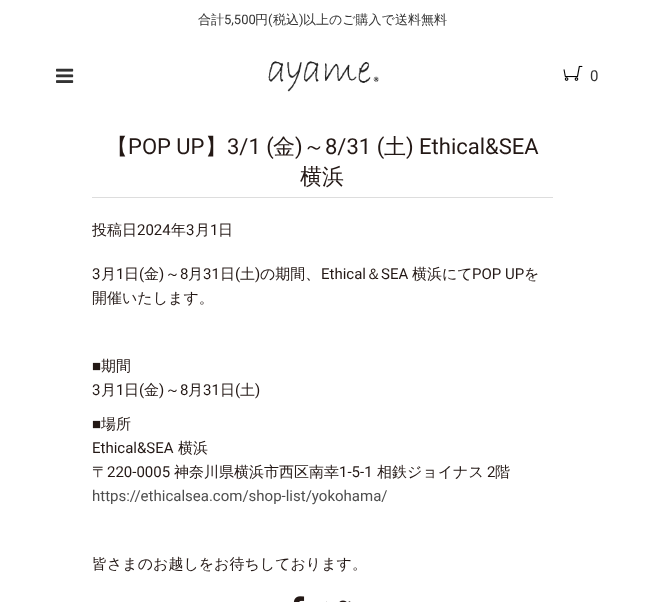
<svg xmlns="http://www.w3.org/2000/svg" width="645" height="602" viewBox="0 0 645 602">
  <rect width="100%" height="100%" fill="#ffffff"/>
  <text x="198" y="24" font-family="WenQuanYi Zen Hei" font-size="13" font-weight="500" fill="#333333">合計</text>
  <text x="224" y="24" font-family="Roboto" font-size="13" fill="#333333">5,500</text>
  <text x="255" y="24" font-family="WenQuanYi Zen Hei" font-size="13" font-weight="500" fill="#333333">円</text>
  <text x="268" y="24" font-family="Roboto" font-size="13" fill="#333333">(</text>
  <text x="273" y="24" font-family="WenQuanYi Zen Hei" font-size="13" font-weight="500" fill="#333333">税込</text>
  <text x="299" y="24" font-family="Roboto" font-size="13" fill="#333333">)</text>
  <text x="303" y="24" font-family="WenQuanYi Zen Hei" font-size="13" font-weight="500" fill="#333333">以上のご購入で送料無料</text>
  <image x="56" y="68" width="18" height="15" href="img1.png"/>
  <image x="268" y="61" width="111" height="31" href="img2.png"/>
  <image x="563" y="65" width="20" height="16" href="img3.png"/>
  <text x="590" y="81" font-family="Roboto" font-size="15" fill="#333333">0</text>
  <rect x="92" y="197" width="461" height="1" fill="#dddddd"/>
  <text x="106" y="154" font-family="WenQuanYi Zen Hei" font-size="22" font-weight="500" fill="#231815">【</text>
  <text x="128" y="154" font-family="Roboto" font-size="22" fill="#231815">POP UP</text>
  <text x="205" y="154" font-family="WenQuanYi Zen Hei" font-size="22" font-weight="500" fill="#231815">】</text>
  <text x="227" y="154" font-family="Roboto" font-size="22" fill="#231815">3/1 (</text>
  <text x="273" y="154" font-family="WenQuanYi Zen Hei" font-size="22" font-weight="500" fill="#231815">金</text>
  <text x="295" y="154" font-family="Roboto" font-size="22" fill="#231815">)</text>
  <text x="303" y="154" font-family="WenQuanYi Zen Hei" font-size="22" font-weight="500" fill="#231815">～</text>
  <text x="325" y="154" font-family="Roboto" font-size="22" fill="#231815">8/31 (</text>
  <text x="384" y="154" font-family="WenQuanYi Zen Hei" font-size="22" font-weight="500" fill="#231815">土</text>
  <text x="406" y="154" font-family="Roboto" font-size="22" fill="#231815">) Ethical&amp;SEA</text>
  <text x="300" y="184" font-family="WenQuanYi Zen Hei" font-size="22" font-weight="500" fill="#231815">横浜</text>
  <text x="92" y="235" font-family="WenQuanYi Zen Hei" font-size="15" font-weight="500" fill="#231815">投稿日</text>
  <text x="137" y="235" font-family="Roboto" font-size="15" fill="#231815">2024</text>
  <text x="171" y="235" font-family="WenQuanYi Zen Hei" font-size="15" font-weight="500" fill="#231815">年</text>
  <text x="186" y="235" font-family="Roboto" font-size="15" fill="#231815">3</text>
  <text x="195" y="235" font-family="WenQuanYi Zen Hei" font-size="15" font-weight="500" fill="#231815">月</text>
  <text x="210" y="235" font-family="Roboto" font-size="15" fill="#231815">1</text>
  <text x="218" y="235" font-family="WenQuanYi Zen Hei" font-size="15" font-weight="500" fill="#231815">日</text>
  <text x="92" y="279" font-family="Roboto" font-size="15" fill="#231815">3</text>
  <text x="101" y="279" font-family="WenQuanYi Zen Hei" font-size="15" font-weight="500" fill="#231815">月</text>
  <text x="116" y="279" font-family="Roboto" font-size="15" fill="#231815">1</text>
  <text x="124" y="279" font-family="WenQuanYi Zen Hei" font-size="15" font-weight="500" fill="#231815">日</text>
  <text x="139" y="279" font-family="Roboto" font-size="15" fill="#231815">(</text>
  <text x="144" y="279" font-family="WenQuanYi Zen Hei" font-size="15" font-weight="500" fill="#231815">金</text>
  <text x="159" y="279" font-family="Roboto" font-size="15" fill="#231815">)</text>
  <text x="165" y="279" font-family="WenQuanYi Zen Hei" font-size="15" font-weight="500" fill="#231815">～</text>
  <text x="180" y="279" font-family="Roboto" font-size="15" fill="#231815">8</text>
  <text x="188" y="279" font-family="WenQuanYi Zen Hei" font-size="15" font-weight="500" fill="#231815">月</text>
  <text x="203" y="279" font-family="Roboto" font-size="15" fill="#231815">31</text>
  <text x="220" y="279" font-family="WenQuanYi Zen Hei" font-size="15" font-weight="500" fill="#231815">日</text>
  <text x="235" y="279" font-family="Roboto" font-size="15" fill="#231815">(</text>
  <text x="240" y="279" font-family="WenQuanYi Zen Hei" font-size="15" font-weight="500" fill="#231815">土</text>
  <text x="255" y="279" font-family="Roboto" font-size="15" fill="#231815">)</text>
  <text x="260" y="279" font-family="WenQuanYi Zen Hei" font-size="15" font-weight="500" fill="#231815">の期間、</text>
  <text x="321" y="279" font-family="Roboto" font-size="15" fill="#231815">Ethical</text>
  <text x="366" y="279" font-family="WenQuanYi Zen Hei" font-size="15" font-weight="500" fill="#231815">＆</text>
  <text x="381" y="279" font-family="Roboto" font-size="15" fill="#231815">SEA</text>
  <text x="412" y="279" font-family="WenQuanYi Zen Hei" font-size="15" font-weight="500" fill="#231815">横浜にて</text>
  <text x="472" y="279" font-family="Roboto" font-size="15" fill="#231815">POP UP</text>
  <text x="524" y="279" font-family="WenQuanYi Zen Hei" font-size="15" font-weight="500" fill="#231815">を</text>
  <text x="92" y="303" font-family="WenQuanYi Zen Hei" font-size="15" font-weight="500" fill="#231815">開催いたします。</text>
  <text x="92" y="371" font-family="Liberation Sans" font-size="15" fill="#231815">■</text>
  <text x="101" y="371" font-family="WenQuanYi Zen Hei" font-size="15" font-weight="500" fill="#231815">期間</text>
  <text x="92" y="395" font-family="Roboto" font-size="15" fill="#231815">3</text>
  <text x="101" y="395" font-family="WenQuanYi Zen Hei" font-size="15" font-weight="500" fill="#231815">月</text>
  <text x="116" y="395" font-family="Roboto" font-size="15" fill="#231815">1</text>
  <text x="124" y="395" font-family="WenQuanYi Zen Hei" font-size="15" font-weight="500" fill="#231815">日</text>
  <text x="139" y="395" font-family="Roboto" font-size="15" fill="#231815">(</text>
  <text x="144" y="395" font-family="WenQuanYi Zen Hei" font-size="15" font-weight="500" fill="#231815">金</text>
  <text x="159" y="395" font-family="Roboto" font-size="15" fill="#231815">)</text>
  <text x="165" y="395" font-family="WenQuanYi Zen Hei" font-size="15" font-weight="500" fill="#231815">～</text>
  <text x="180" y="395" font-family="Roboto" font-size="15" fill="#231815">8</text>
  <text x="188" y="395" font-family="WenQuanYi Zen Hei" font-size="15" font-weight="500" fill="#231815">月</text>
  <text x="203" y="395" font-family="Roboto" font-size="15" fill="#231815">31</text>
  <text x="220" y="395" font-family="WenQuanYi Zen Hei" font-size="15" font-weight="500" fill="#231815">日</text>
  <text x="235" y="395" font-family="Roboto" font-size="15" fill="#231815">(</text>
  <text x="240" y="395" font-family="WenQuanYi Zen Hei" font-size="15" font-weight="500" fill="#231815">土</text>
  <text x="255" y="395" font-family="Roboto" font-size="15" fill="#231815">)</text>
  <text x="92" y="429" font-family="Liberation Sans" font-size="15" fill="#231815">■</text>
  <text x="101" y="429" font-family="WenQuanYi Zen Hei" font-size="15" font-weight="500" fill="#231815">場所</text>
  <text x="92" y="453" font-family="Roboto" font-size="15" fill="#231815">Ethical&amp;SEA</text>
  <text x="178" y="453" font-family="WenQuanYi Zen Hei" font-size="15" font-weight="500" fill="#231815">横浜</text>
  <text x="92" y="477" font-family="WenQuanYi Zen Hei" font-size="15" font-weight="500" fill="#231815">〒</text>
  <text x="107" y="477" font-family="Roboto" font-size="15" fill="#231815">220-0005</text>
  <text x="174" y="477" font-family="WenQuanYi Zen Hei" font-size="15" font-weight="500" fill="#231815">神奈川県横浜市西区南幸</text>
  <text x="339" y="477" font-family="Roboto" font-size="15" fill="#231815">1-5-1</text>
  <text x="377" y="477" font-family="WenQuanYi Zen Hei" font-size="15" font-weight="500" fill="#231815">相鉄ジョイナス</text>
  <text x="487" y="477" font-family="Roboto" font-size="15" fill="#231815">2</text>
  <text x="495" y="477" font-family="WenQuanYi Zen Hei" font-size="15" font-weight="500" fill="#231815">階</text>
  <text x="92" y="501" font-family="Roboto" font-size="15" fill="#4e4e4e">https://ethicalsea.com/shop-list/yokohama/</text>
  <text x="92" y="569" font-family="WenQuanYi Zen Hei" font-size="15" font-weight="500" fill="#231815">皆さまのお越しをお待ちしております。</text>
  <image x="293" y="596" width="12" height="6" href="img4.png"/>
  <image x="326" y="600" width="25" height="2" href="img5.png"/>
</svg>
